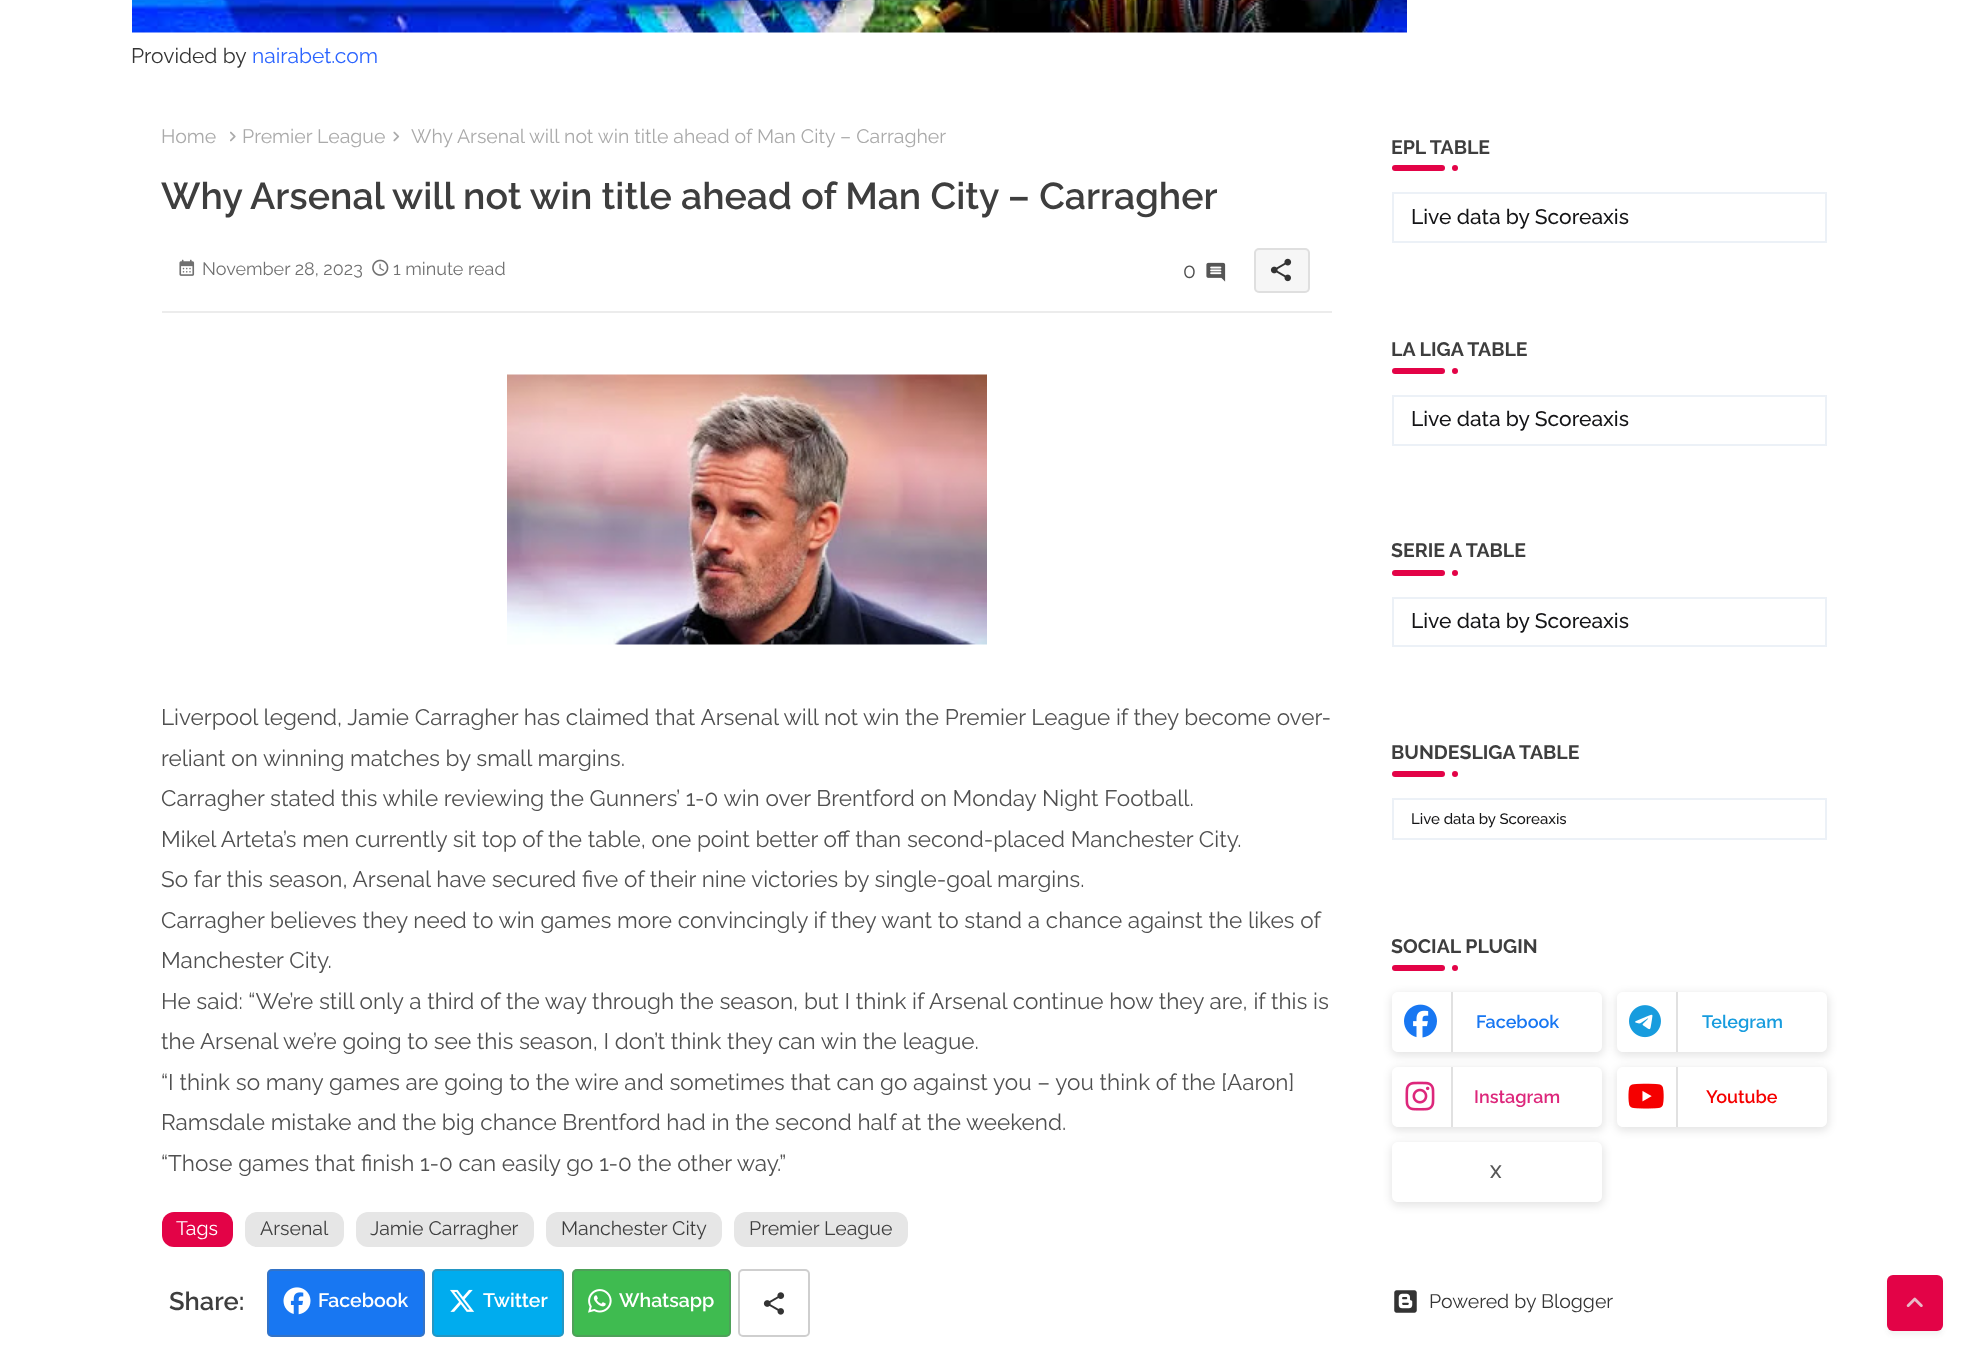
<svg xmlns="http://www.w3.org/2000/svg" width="1980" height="1368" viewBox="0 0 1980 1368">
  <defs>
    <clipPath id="clip1"><path d="M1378 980H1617V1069H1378ZM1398 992H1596C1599.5 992 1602 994.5 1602 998V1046C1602 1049.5 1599.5 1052 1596 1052H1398C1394.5 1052 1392 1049.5 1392 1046V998C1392 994.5 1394.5 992 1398 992Z" clip-rule="evenodd"/></clipPath>
    <filter id="blur1" x="-50%" y="-200%" width="200%" height="500%"><feGaussianBlur stdDeviation="4"/></filter>
    <clipPath id="clip2"><path d="M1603 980H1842V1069H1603ZM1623 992H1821C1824.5 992 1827 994.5 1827 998V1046C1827 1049.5 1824.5 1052 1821 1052H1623C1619.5 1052 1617 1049.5 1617 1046V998C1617 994.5 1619.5 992 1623 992Z" clip-rule="evenodd"/></clipPath>
    <clipPath id="clip3"><path d="M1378 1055H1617V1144H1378ZM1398 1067H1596C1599.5 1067 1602 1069.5 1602 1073V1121C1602 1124.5 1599.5 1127 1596 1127H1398C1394.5 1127 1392 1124.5 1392 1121V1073C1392 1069.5 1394.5 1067 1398 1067Z" clip-rule="evenodd"/></clipPath>
    <clipPath id="clip4"><path d="M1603 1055H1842V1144H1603ZM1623 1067H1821C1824.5 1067 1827 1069.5 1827 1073V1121C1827 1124.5 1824.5 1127 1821 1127H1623C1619.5 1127 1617 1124.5 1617 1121V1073C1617 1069.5 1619.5 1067 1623 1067Z" clip-rule="evenodd"/></clipPath>
    <clipPath id="clip5"><path d="M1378 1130H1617V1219H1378ZM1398 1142H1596C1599.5 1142 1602 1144.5 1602 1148V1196C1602 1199.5 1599.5 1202 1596 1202H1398C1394.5 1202 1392 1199.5 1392 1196V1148C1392 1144.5 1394.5 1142 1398 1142Z" clip-rule="evenodd"/></clipPath>
    <filter id="blur2" x="-50%" y="-200%" width="200%" height="500%"><feGaussianBlur stdDeviation="2"/></filter>
  </defs>
  <rect width="100%" height="100%" fill="#ffffff"/>
  <image x="132" y="0" width="1275" height="33" href="img1.png"/>
  <text x="131" y="63" font-family="Raleway" font-size="21" fill="#343434">Provided by</text>
  <text x="252" y="63" font-family="Raleway" font-size="21" fill="#2b64ff">nairabet.com</text>
  <text x="161" y="143" font-family="Raleway" font-size="19.5" fill="#aaaaaa">Home</text>
  <image x="230" y="131" width="6" height="11" href="img2.png"/>
  <text x="242" y="143" font-family="Raleway" font-size="19.5" fill="#aaaaaa">Premier League</text>
  <image x="393" y="131" width="7" height="11" href="img3.png"/>
  <text x="411" y="143" font-family="Raleway" font-size="19.5" fill="#aaaaaa">Why Arsenal will not win title ahead of Man City – Carragher</text>
  <text x="161" y="209" font-family="Raleway" font-size="37.5" font-weight="600" fill="#3e3e3e">Why Arsenal will not win title ahead of Man City – Carragher</text>
  <rect x="162" y="311" width="1170" height="2" fill="#ececec"/>
  <image x="179" y="259" width="16" height="17" href="img4.png"/>
  <text x="202" y="275" font-family="Raleway" font-size="18" fill="#707070">November 28, 2023</text>
  <image x="372" y="259" width="17" height="17" href="img5.png"/>
  <text x="393" y="275" font-family="Raleway" font-size="18" fill="#707070">1 minute read</text>
  <text x="1183" y="278" font-family="Raleway" font-size="21" fill="#505050">0</text>
  <image x="1206" y="262" width="20" height="20" href="img6.png"/>
  <rect x="1254" y="248" width="56" height="45" rx="5" fill="#f6f6f6"/>
  <rect x="1255" y="249" width="54" height="43" rx="4" fill="none" stroke="#818181" stroke-opacity="0.19" stroke-width="2"/>
  <image x="1270" y="258" width="22" height="24" href="img7.png"/>
  <image x="507" y="374" width="480" height="271" href="img8.png"/>
  <text x="161" y="725" font-family="Raleway" font-size="22.5" fill="#505050">Liverpool legend, Jamie Carragher has claimed that Arsenal will not win the Premier League if they become over-</text>
  <text x="161" y="766" font-family="Raleway" font-size="22.5" fill="#505050">reliant on winning matches by small margins.</text>
  <text x="161" y="806" font-family="Raleway" font-size="22.5" fill="#505050">Carragher stated this while reviewing the Gunners’ 1-0 win over Brentford on Monday Night Football.</text>
  <text x="161" y="847" font-family="Raleway" font-size="22.5" fill="#505050">Mikel Arteta’s men currently sit top of the table, one point better off than second-placed Manchester City.</text>
  <text x="161" y="887" font-family="Raleway" font-size="22.5" fill="#505050">So far this season, Arsenal have secured five of their nine victories by single-goal margins.</text>
  <text x="161" y="928" font-family="Raleway" font-size="22.5" fill="#505050">Carragher believes they need to win games more convincingly if they want to stand a chance against the likes of</text>
  <text x="161" y="968" font-family="Raleway" font-size="22.5" fill="#505050">Manchester City.</text>
  <text x="161" y="1009" font-family="Raleway" font-size="22.5" fill="#505050">He said: “We’re still only a third of the way through the season, but I think if Arsenal continue how they are, if this is</text>
  <text x="161" y="1049" font-family="Raleway" font-size="22.5" fill="#505050">the Arsenal we’re going to see this season, I don’t think they can win the league.</text>
  <text x="161" y="1090" font-family="Raleway" font-size="22.5" fill="#505050">“I think so many games are going to the wire and sometimes that can go against you – you think of the [Aaron]</text>
  <text x="161" y="1130" font-family="Raleway" font-size="22.5" fill="#505050">Ramsdale mistake and the big chance Brentford had in the second half at the weekend.</text>
  <text x="161" y="1171" font-family="Raleway" font-size="22.5" fill="#505050">“Those games that finish 1-0 can easily go 1-0 the other way.”</text>
  <rect x="162" y="1212" width="71" height="35" rx="12" fill="#e30347"/>
  <text x="176" y="1235" font-family="Raleway" font-size="19.5" fill="#ffffff">Tags</text>
  <rect x="245" y="1212" width="99" height="35" rx="12" fill="#e6e6e6"/>
  <text x="260" y="1235" font-family="Raleway" font-size="19.5" fill="#3e3e3e">Arsenal</text>
  <rect x="356" y="1212" width="178" height="35" rx="12" fill="#e6e6e6"/>
  <text x="370" y="1235" font-family="Raleway" font-size="19.5" fill="#3e3e3e">Jamie Carragher</text>
  <rect x="546" y="1212" width="176" height="35" rx="12" fill="#e6e6e6"/>
  <text x="561" y="1235" font-family="Raleway" font-size="19.5" fill="#3e3e3e">Manchester City</text>
  <rect x="734" y="1212" width="174" height="35" rx="12" fill="#e6e6e6"/>
  <text x="749" y="1235" font-family="Raleway" font-size="19.5" fill="#3e3e3e">Premier League</text>
  <text x="169" y="1310" font-family="Raleway" font-size="25.5" font-weight="600" fill="#3e3e3e">Share:</text>
  <rect x="267" y="1269" width="158" height="68" rx="5" fill="#1877f2"/>
  <rect x="268" y="1270" width="156" height="66" rx="4" fill="none" stroke="#6e6e6e" stroke-opacity="0.33" stroke-width="2"/>
  <image x="283" y="1287" width="28" height="28" href="img9.png"/>
  <text x="318" y="1307" font-family="Raleway" font-size="19.5" font-weight="600" fill="#ffffff">Facebook</text>
  <rect x="432" y="1269" width="132" height="68" rx="5" fill="#00acee"/>
  <rect x="433" y="1270" width="130" height="66" rx="4" fill="none" stroke="#6e6e6e" stroke-opacity="0.33" stroke-width="2"/>
  <image x="450" y="1289" width="25" height="23" href="img10.png"/>
  <text x="483" y="1307" font-family="Raleway" font-size="19.5" font-weight="600" fill="#ffffff">Twitter</text>
  <rect x="572" y="1269" width="159" height="68" rx="5" fill="#3fbb50"/>
  <rect x="573" y="1270" width="157" height="66" rx="4" fill="none" stroke="#6e6e6e" stroke-opacity="0.33" stroke-width="2"/>
  <image x="588" y="1289" width="24" height="24" href="img11.png"/>
  <text x="619" y="1307" font-family="Raleway" font-size="19.5" font-weight="600" fill="#ffffff">Whatsapp</text>
  <rect x="739" y="1270" width="70" height="66" rx="4" fill="none" stroke="#cfcfcf" stroke-width="2"/>
  <image x="763" y="1292" width="22" height="23" href="img12.png"/>
  <text x="1391" y="154" font-family="Raleway" font-size="19.5" font-weight="bold" fill="#3e3e3e">EPL TABLE</text>
  <rect x="1392" y="165" width="53" height="6" rx="3" fill="#e30347"/>
  <circle cx="1455" cy="168" r="3" fill="#e30347"/>
  <rect x="1393" y="193" width="433" height="49" fill="none" stroke="#ecf1f7" stroke-width="2"/>
  <text x="1411" y="224" font-family="Raleway" font-size="21" font-weight="500" fill="#141416">Live data by Scoreaxis</text>
  <text x="1391" y="356" font-family="Raleway" font-size="19.5" font-weight="bold" fill="#3e3e3e">LA LIGA TABLE</text>
  <rect x="1392" y="368" width="53" height="6" rx="3" fill="#e30347"/>
  <circle cx="1455" cy="371" r="3" fill="#e30347"/>
  <rect x="1393" y="396" width="433" height="49" fill="none" stroke="#ecf1f7" stroke-width="2"/>
  <text x="1411" y="426" font-family="Raleway" font-size="21" font-weight="500" fill="#141416">Live data by Scoreaxis</text>
  <text x="1391" y="557" font-family="Raleway" font-size="19.5" font-weight="bold" fill="#3e3e3e">SERIE A TABLE</text>
  <rect x="1392" y="570" width="53" height="6" rx="3" fill="#e30347"/>
  <circle cx="1455" cy="573" r="3" fill="#e30347"/>
  <rect x="1393" y="598" width="433" height="48" fill="none" stroke="#ecf1f7" stroke-width="2"/>
  <text x="1411" y="628" font-family="Raleway" font-size="21" font-weight="500" fill="#141416">Live data by Scoreaxis</text>
  <text x="1391" y="759" font-family="Raleway" font-size="19.5" font-weight="bold" fill="#3e3e3e">BUNDESLIGA TABLE</text>
  <rect x="1392" y="771" width="53" height="6" rx="3" fill="#e30347"/>
  <circle cx="1455" cy="774" r="3" fill="#e30347"/>
  <rect x="1393" y="799" width="433" height="40" fill="none" stroke="#ecf1f7" stroke-width="2"/>
  <text x="1411" y="824" font-family="Raleway" font-size="15" font-weight="500" fill="#141416">Live data by Scoreaxis</text>
  <text x="1391" y="953" font-family="Raleway" font-size="19.5" font-weight="bold" fill="#3e3e3e">SOCIAL PLUGIN</text>
  <rect x="1392" y="965" width="53" height="6" rx="3" fill="#e30347"/>
  <circle cx="1455" cy="968" r="3" fill="#e30347"/>
  <g clip-path="url(#clip1)">
    <rect x="1391" y="993" width="213" height="63" rx="8" fill="#000000" fill-opacity="0.1" filter="url(#blur1)"/>
  </g>
  <rect x="1451" y="992" width="2" height="60" fill="#a1a1a1" fill-opacity="0.32"/>
  <image x="1404" y="1004" width="33" height="34" href="img13.png"/>
  <text x="1476" y="1028" font-family="Raleway" font-size="18" font-weight="600" fill="#1877f2">Facebook</text>
  <g clip-path="url(#clip2)">
    <rect x="1616" y="993" width="213" height="63" rx="8" fill="#000000" fill-opacity="0.1" filter="url(#blur1)"/>
  </g>
  <rect x="1676" y="992" width="2" height="60" fill="#a1a1a1" fill-opacity="0.32"/>
  <image x="1629" y="1005" width="32" height="33" href="img14.png"/>
  <text x="1702" y="1028" font-family="Raleway" font-size="18" font-weight="600" fill="#179cde">Telegram</text>
  <g clip-path="url(#clip3)">
    <rect x="1391" y="1068" width="213" height="63" rx="8" fill="#000000" fill-opacity="0.1" filter="url(#blur1)"/>
  </g>
  <rect x="1451" y="1067" width="2" height="60" fill="#a1a1a1" fill-opacity="0.32"/>
  <image x="1405" y="1081" width="30" height="30" href="img15.png"/>
  <text x="1474" y="1103" font-family="Raleway" font-size="18" font-weight="600" fill="#dd277b">Instagram</text>
  <g clip-path="url(#clip4)">
    <rect x="1616" y="1068" width="213" height="63" rx="8" fill="#000000" fill-opacity="0.1" filter="url(#blur1)"/>
  </g>
  <rect x="1676" y="1067" width="2" height="60" fill="#a1a1a1" fill-opacity="0.32"/>
  <image x="1628" y="1083" width="36" height="26" href="img16.png"/>
  <text x="1706" y="1103" font-family="Raleway" font-size="18" font-weight="600" fill="#f50000">Youtube</text>
  <g clip-path="url(#clip5)">
    <rect x="1391" y="1143" width="213" height="63" rx="8" fill="#000000" fill-opacity="0.1" filter="url(#blur1)"/>
  </g>
  <text x="1490" y="1178" font-family="Raleway" font-size="18" font-weight="600" fill="#585858">X</text>
  <image x="1394" y="1290" width="23" height="23" href="img17.png"/>
  <text x="1429" y="1308" font-family="Raleway" font-size="19.5" fill="#343434">Powered by Blogger</text>
  <rect x="1887" y="1280" width="56" height="55" rx="6" fill="#787878" fill-opacity="0.08" filter="url(#blur2)"/>
  <rect x="1887" y="1275" width="56" height="56" rx="6" fill="#e30347"/>
  <image x="1906" y="1297" width="17" height="10" href="img18.png"/>
</svg>
